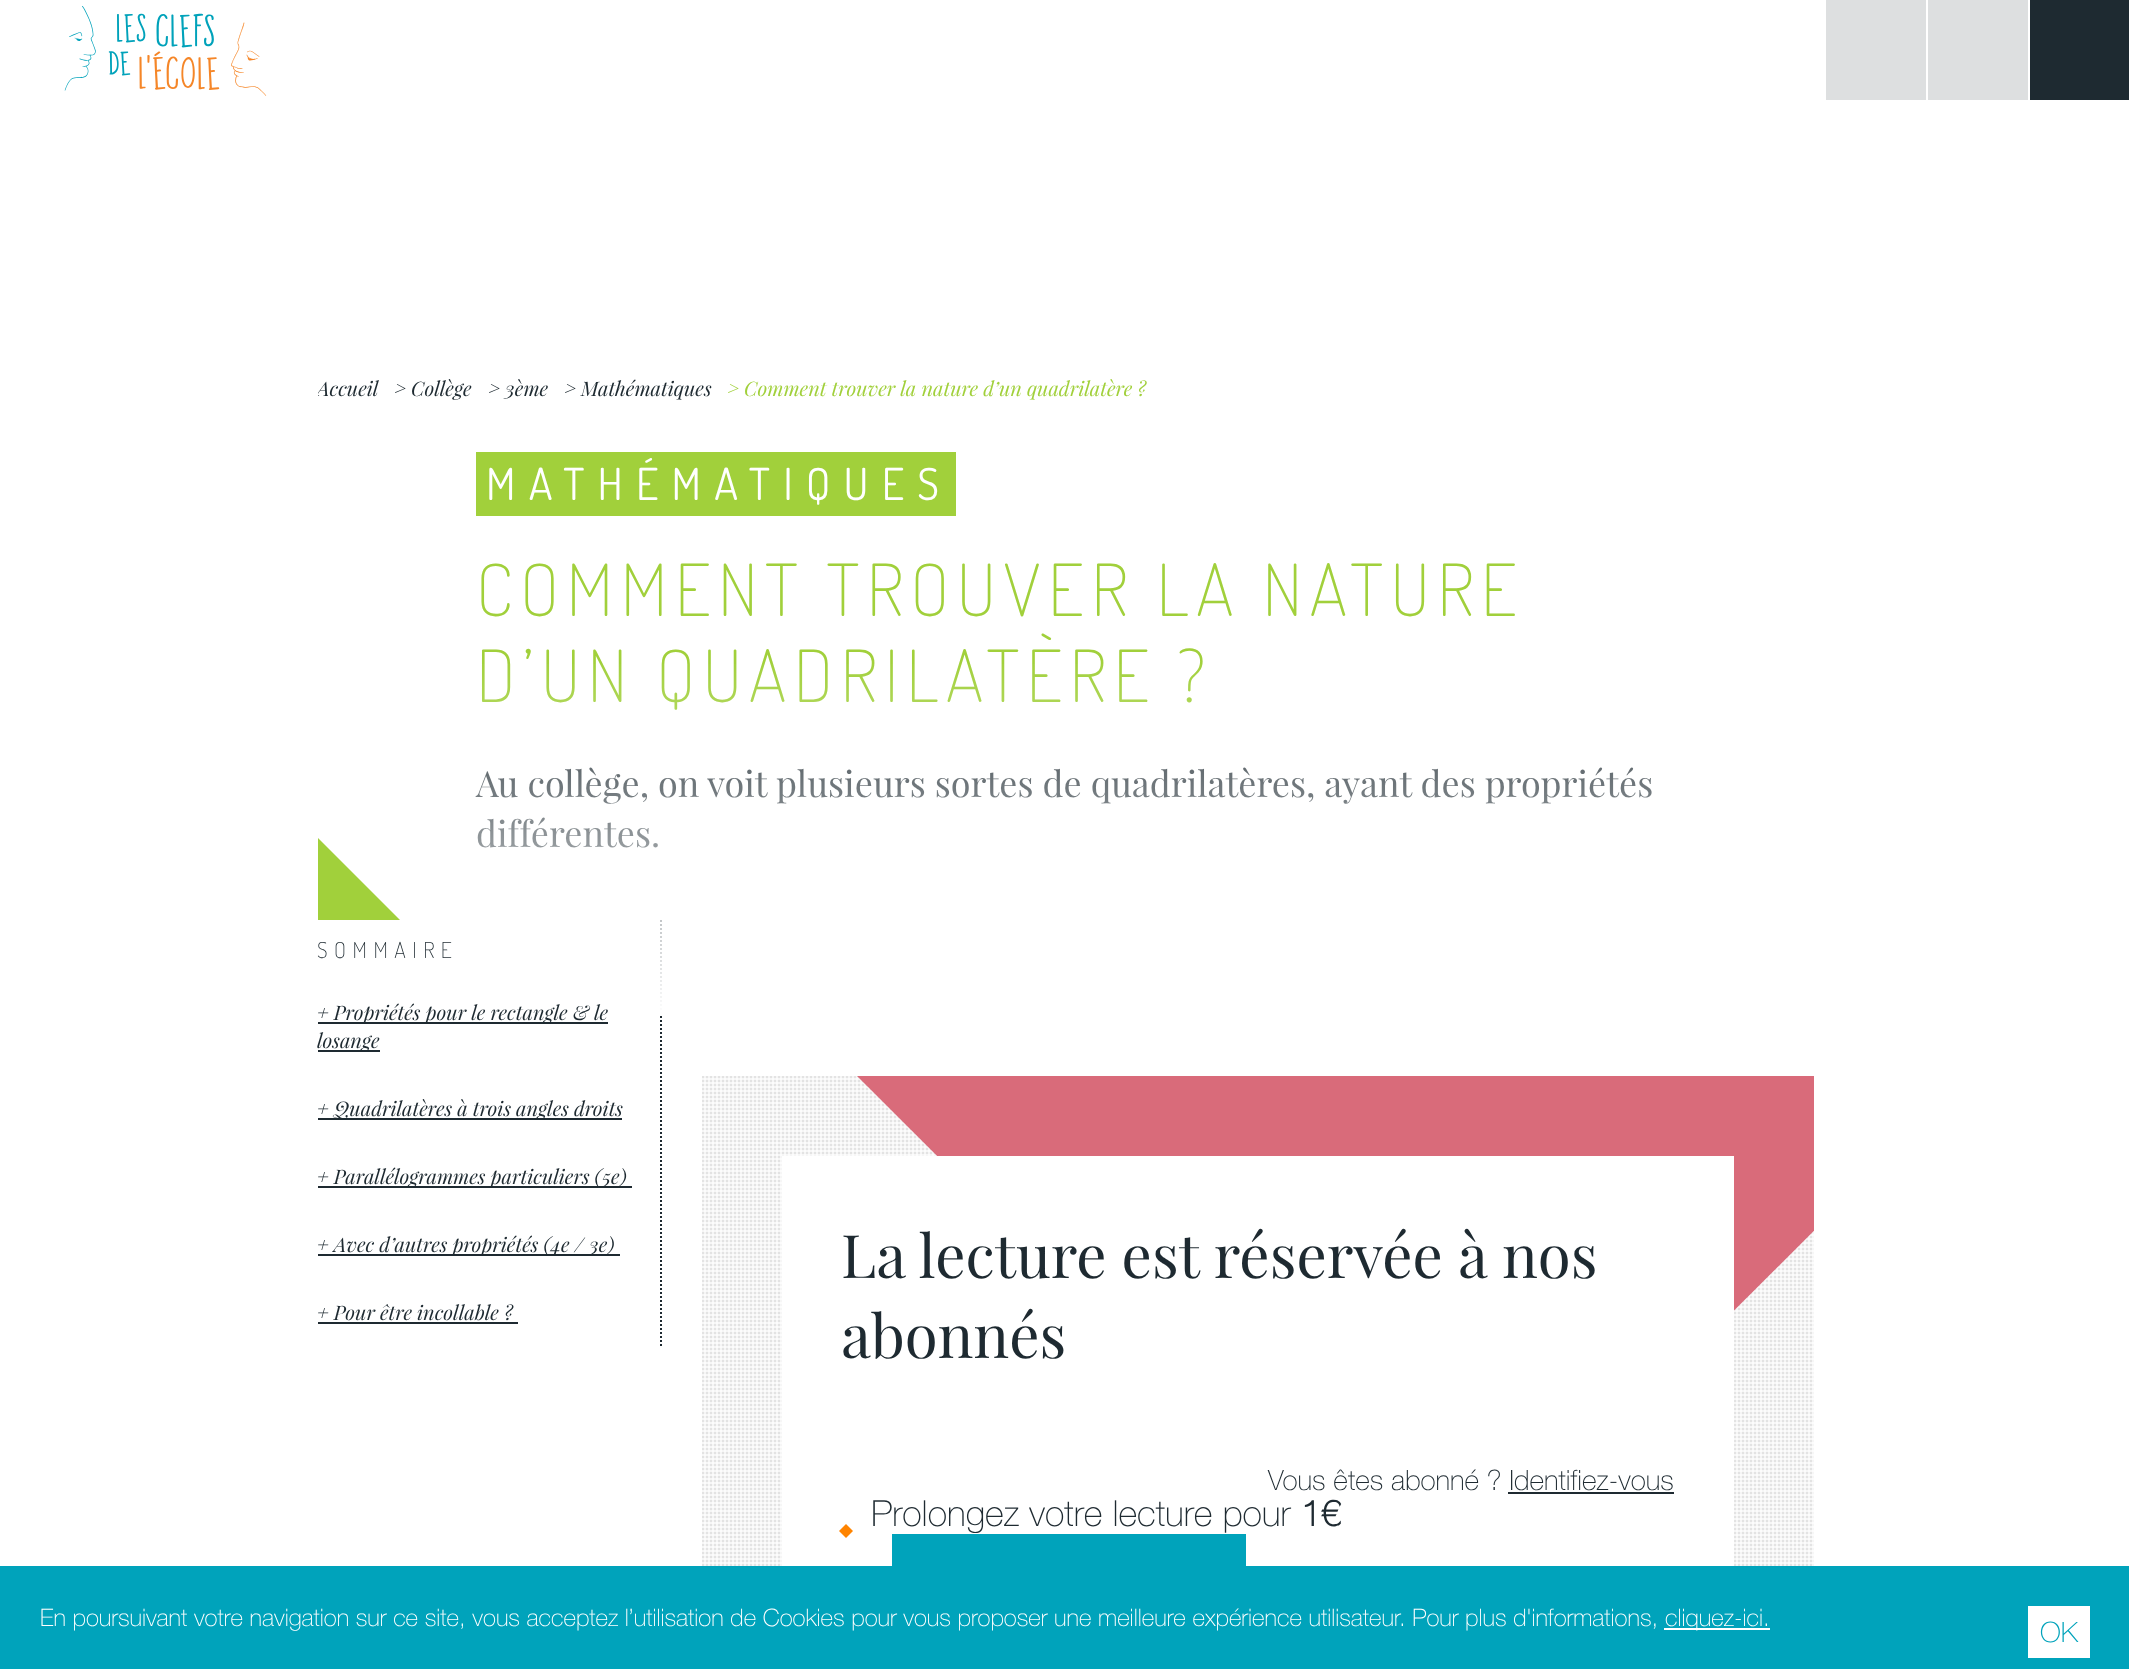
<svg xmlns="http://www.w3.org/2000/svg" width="2129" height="1669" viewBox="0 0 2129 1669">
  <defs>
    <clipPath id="clip1"><rect x="318" y="360" width="848" height="60"/></clipPath>
    <linearGradient id="g1" gradientUnits="userSpaceOnUse" x1="1065" y1="1016" x2="1065" y2="656"><stop offset="0" stop-color="#ffffff"/><stop offset="1" stop-color="#ffffff" stop-opacity="0"/></linearGradient>
    <clipPath id="clip2"><rect x="702" y="1076" width="1112" height="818"/></clipPath>
  </defs>
  <rect width="100%" height="100%" fill="#ffffff"/>
  <image x="64" y="6" width="203" height="90" href="img1.png"/>
  <rect x="1826" y="0" width="100" height="100" fill="#dddfe0"/>
  <rect x="1928" y="0" width="100" height="100" fill="#dddfe0"/>
  <rect x="2030" y="0" width="99" height="100" fill="#1e2a31"/>
  <g clip-path="url(#clip1)">
    <text x="317" y="396" font-family="Playfair Display" font-size="20" font-style="italic" fill="#1e2a31">Accueil</text>
  </g>
  <text x="394" y="396" font-family="Playfair Display" font-size="20" font-style="italic" fill="#1e2a31">&gt; Collège</text>
  <text x="488" y="396" font-family="Playfair Display" font-size="20" font-style="italic" fill="#1e2a31">&gt; 3ème</text>
  <text x="564" y="396" font-family="Playfair Display" font-size="20" font-style="italic" fill="#1e2a31">&gt; Mathématiques</text>
  <text x="727" y="396" font-family="Playfair Display" font-size="20" font-style="italic" fill="#a1d03b">&gt; Comment trouver la nature d’un quadrilatère ?</text>
  <rect x="476" y="452" width="480" height="64" fill="#a1d03b"/>
  <text x="486" y="500" font-family="Dosis" font-size="44" letter-spacing="13.25" fill="#ffffff">MATHÉMATIQUES</text>
  <text x="476" y="616" font-family="Dosis" font-size="72" font-weight="200" letter-spacing="7.2" fill="#a1d03b">COMMENT TROUVER LA NATURE</text>
  <text x="476" y="702" font-family="Dosis" font-size="72" font-weight="200" letter-spacing="7.2" fill="#a1d03b">D’UN QUADRILATÈRE ?</text>
  <text x="476" y="797" font-family="Playfair Display" font-size="36" fill="#1e2a31">Au collège, on voit plusieurs sortes de quadrilatères, ayant des propriétés</text>
  <text x="476" y="847" font-family="Playfair Display" font-size="36" fill="#1e2a31">différentes.</text>
  <path d="M661 920V1348" fill="none" stroke="#1e2a31" stroke-width="2" stroke-dasharray="2 2"/>
  <rect x="476" y="664" width="1176" height="350" fill="url(#g1)"/>
  <path d="M318 920V838L400 920Z" fill="#a1d03b"/>
  <text x="317" y="958" font-family="Dosis" font-size="22" font-weight="200" letter-spacing="6.5" fill="#1e2a31">SOMMAIRE</text>
  <rect x="318" y="1022" width="290" height="2" fill="#1e2a31"/>
  <text x="317" y="1020" font-family="Playfair Display" font-size="20" font-style="italic" fill="#1e2a31">+ Propriétés pour le rectangle &amp; le</text>
  <rect x="318" y="1050" width="62" height="2" fill="#1e2a31"/>
  <text x="317" y="1048" font-family="Playfair Display" font-size="20" font-style="italic" fill="#1e2a31">losange</text>
  <rect x="318" y="1118" width="304" height="2" fill="#1e2a31"/>
  <text x="317" y="1116" font-family="Playfair Display" font-size="20" font-style="italic" fill="#1e2a31">+ Quadrilatères à trois angles droits</text>
  <rect x="318" y="1186" width="314" height="2" fill="#1e2a31"/>
  <text x="317" y="1184" font-family="Playfair Display" font-size="20" font-style="italic" fill="#1e2a31">+ Parallélogrammes particuliers (5e)</text>
  <rect x="318" y="1254" width="302" height="2" fill="#1e2a31"/>
  <text x="317" y="1252" font-family="Playfair Display" font-size="20" font-style="italic" fill="#1e2a31">+ Avec d’autres propriétés (4e / 3e)</text>
  <text x="317" y="1320" font-family="Playfair Display" font-size="20" font-style="italic" fill="#1e2a31">+ Pour être incollable ?</text>
  <rect x="318" y="1322" width="200" height="2" fill="#1e2a31"/>
  <image x="702" y="1076" width="1112" height="490" href="img2.png"/>
  <g clip-path="url(#clip2)">
    <path d="M1413 500L1979 1066L1413 1631L847 1066Z" fill="#d96b7a"/>
  </g>
  <rect x="782" y="1156" width="952" height="410" fill="#ffffff"/>
  <text x="841" y="1278" font-family="Playfair Display" font-size="60" fill="#1e2a31">La lecture est réservée à nos</text>
  <text x="841" y="1358" font-family="Playfair Display" font-size="60" fill="#1e2a31">abonnés</text>
  <text x="1268" y="1490" font-family="'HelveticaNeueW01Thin'" font-size="28" font-weight="100" fill="#1e2a31">Vous êtes abonné ? Identifiez-vous</text>
  <rect x="1508" y="1492" width="166" height="2" fill="#1e2a31"/>
  <text x="871" y="1526" font-family="'HelveticaNeueW01Thin'" font-size="36" font-weight="100" fill="#1e2a31">Prolongez votre lecture pour</text>
  <text x="1301" y="1526" font-family="'HelveticaNeueW01Thin'" font-size="36" font-weight="bold" fill="#1e2a31">1€</text>
  <path d="M846 1524L853 1531L846 1538L839 1531Z" fill="#ff8400"/>
  <rect x="892" y="1534" width="354" height="32" fill="#00a3bb"/>
  <rect x="0" y="1566" width="2129" height="103" fill="#00a3bb"/>
  <text x="40" y="1626" font-family="'HelveticaNeueW01Thin'" font-size="24" font-weight="100" fill="#ffffff">En poursuivant votre navigation sur ce site, vous acceptez l’utilisation de Cookies pour vous proposer une meilleure expérience utilisateur. Pour plus d'informations,</text>
  <rect x="1664" y="1628" width="106" height="2" fill="#ffffff"/>
  <text x="1665" y="1626" font-family="'HelveticaNeueW01Thin'" font-size="24" font-weight="100" fill="#ffffff">cliquez-ici.</text>
  <rect x="2028" y="1606" width="62" height="52" fill="#ffffff"/>
  <text x="2040" y="1642" font-family="'HelveticaNeueW01Thin'" font-size="28" font-weight="100" fill="#00a3bb">OK</text>
</svg>
